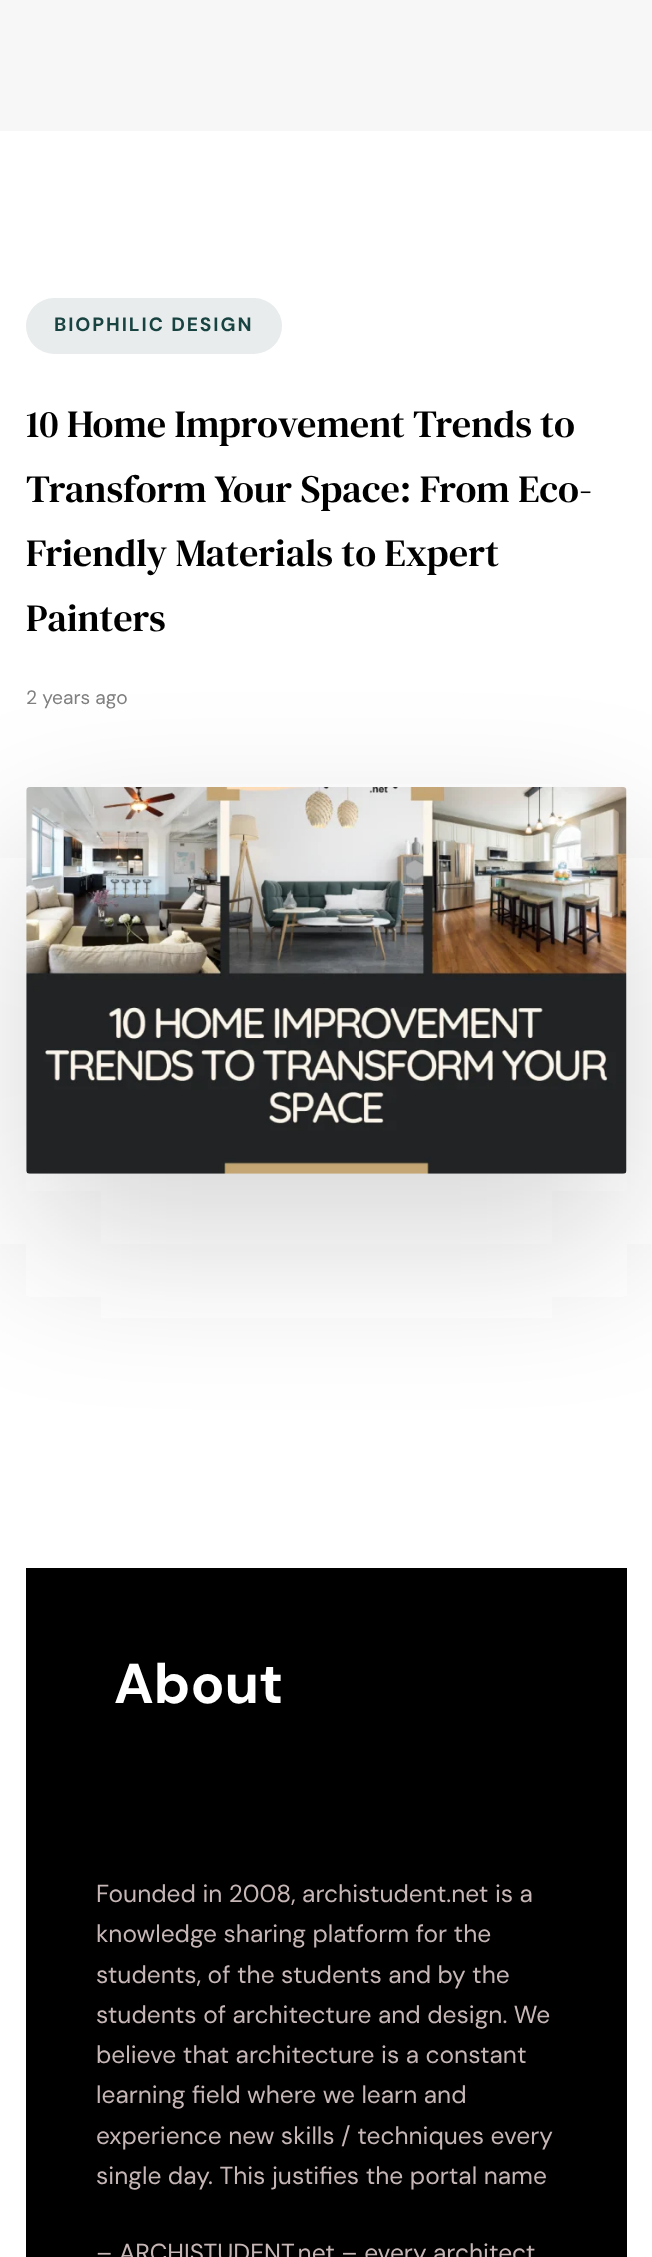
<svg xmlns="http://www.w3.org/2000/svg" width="652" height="2257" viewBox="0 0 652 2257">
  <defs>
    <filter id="blur1" x="-50%" y="-200%" width="200%" height="500%"><feGaussianBlur stdDeviation="79"/></filter>
  </defs>
  <rect width="100%" height="100%" fill="#ffffff"/>
  <rect x="0" y="0" width="652" height="131" fill="#f7f7f7"/>
  <rect x="26" y="298" width="256" height="56" rx="28" fill="#e8ecec"/>
  <text x="54" y="331" font-family="DM Sans" font-size="19.25" font-weight="bold" letter-spacing="1.9" fill="#184341">BIOPHILIC DESIGN</text>
  <text x="26" y="437" font-family="DM Serif Text" font-size="38.5" fill="#000000">10 Home Improvement Trends to</text>
  <text x="26" y="502" font-family="DM Serif Text" font-size="38.5" fill="#000000">Transform Your Space: From Eco-</text>
  <text x="26" y="566" font-family="DM Serif Text" font-size="38.5" fill="#000000">Friendly Materials to Expert</text>
  <text x="26" y="631" font-family="DM Serif Text" font-size="38.5" fill="#000000">Painters</text>
  <text x="26" y="704" font-family="DM Sans" font-size="19.25" fill="#808080">2 years ago</text>
  <rect x="26" y="858" width="601" height="386" rx="4" fill="#464343" fill-opacity="0.2" filter="url(#blur1)"/>
  <image x="26" y="787" width="601" height="387" href="img1.png"/>
  <rect x="26" y="1568" width="601" height="689" fill="#000000"/>
  <text x="114" y="1703" font-family="DM Sans" font-size="56" font-weight="bold" fill="#ffffff">About</text>
  <text x="96" y="1902" font-family="DM Sans" font-size="24.5" fill="#c6b6b6">Founded in 2008, archistudent.net is a</text>
  <text x="96" y="1942" font-family="DM Sans" font-size="24.5" fill="#c6b6b6">knowledge sharing platform for the</text>
  <text x="96" y="1983" font-family="DM Sans" font-size="24.5" fill="#c6b6b6">students, of the students and by the</text>
  <text x="96" y="2023" font-family="DM Sans" font-size="24.5" fill="#c6b6b6">students of architecture and design. We</text>
  <text x="96" y="2063" font-family="DM Sans" font-size="24.5" fill="#c6b6b6">believe that architecture is a constant</text>
  <text x="96" y="2103" font-family="DM Sans" font-size="24.5" fill="#c6b6b6">learning field where we learn and</text>
  <text x="96" y="2144" font-family="DM Sans" font-size="24.5" fill="#c6b6b6">experience new skills / techniques every</text>
  <text x="96" y="2184" font-family="DM Sans" font-size="24.5" fill="#c6b6b6">single day. This justifies the portal name</text>
  <text x="96" y="2261" font-family="DM Sans" font-size="24.5" fill="#c6b6b6">– ARCHISTUDENT.net – every architect</text>
</svg>
